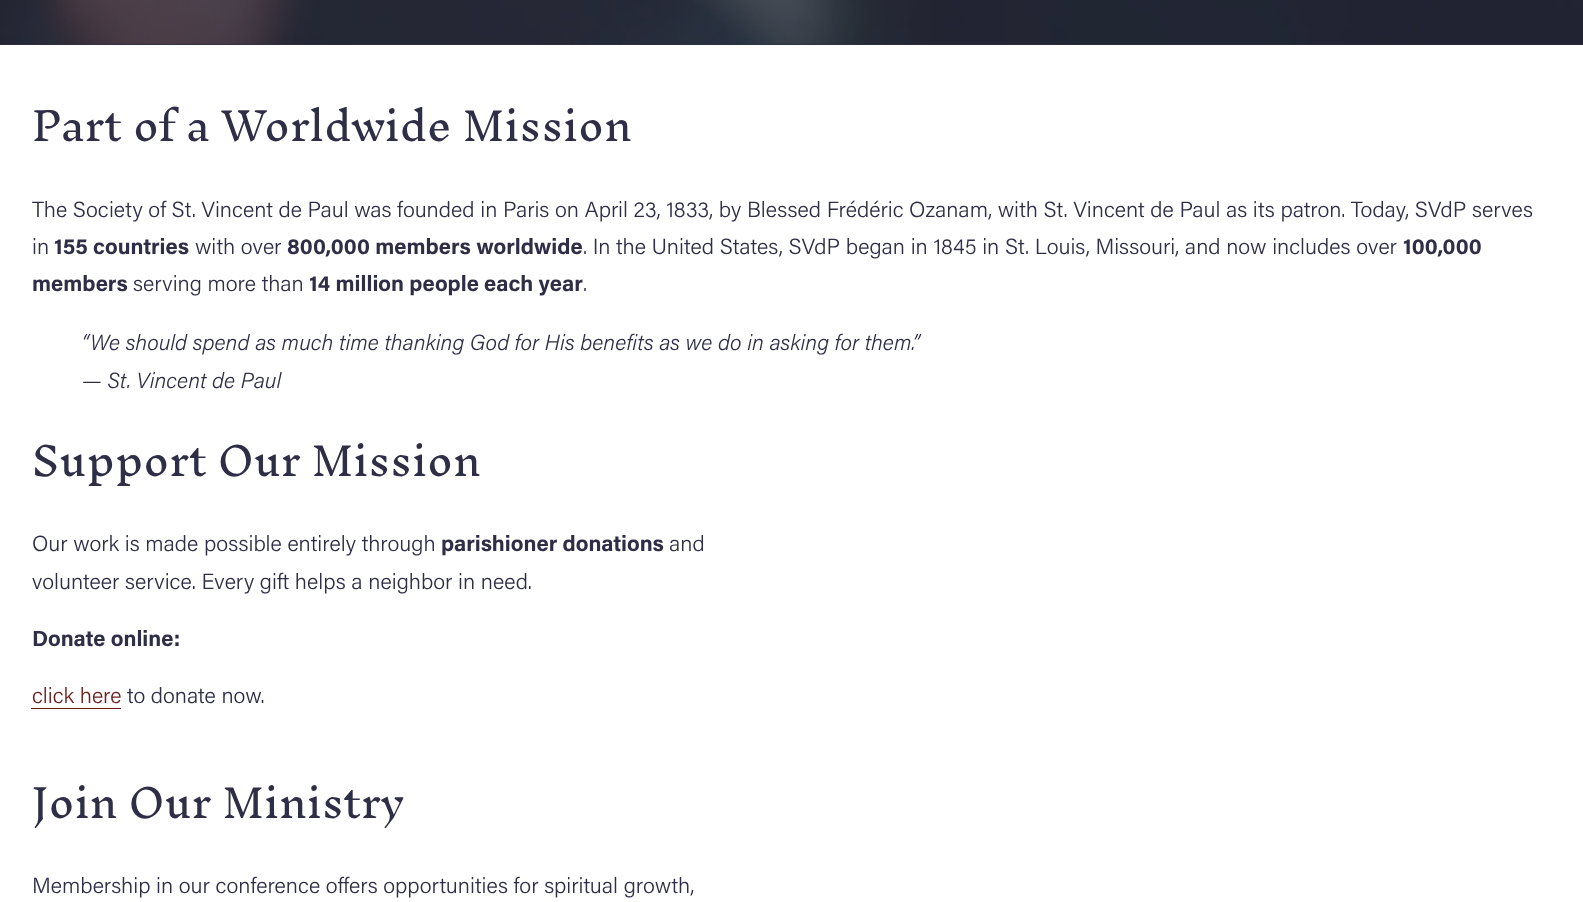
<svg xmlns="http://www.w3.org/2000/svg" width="1583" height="902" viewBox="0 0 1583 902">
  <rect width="100%" height="100%" fill="#ffffff"/>
  <rect x="0" y="44" width="1583" height="1" fill="#2e2e47"/>
  <image x="0" y="0" width="1583" height="45" href="img1.png"/>
  <text x="32" y="141" font-family="Inknut Antiqua" font-size="39" font-weight="300" fill="#2e2e47">Part of a Worldwide Mission</text>
  <text x="32" y="217" font-family="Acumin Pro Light" font-size="21.9" font-weight="300" fill="#2e2e47">The Society of St. Vincent de Paul was founded in Paris on April 23, 1833, by Blessed Frédéric Ozanam, with St. Vincent de Paul as its patron. Today, SVdP serves</text>
  <text x="32" y="254" font-family="Acumin Pro Light" font-size="21.9" font-weight="300" fill="#2e2e47">in</text>
  <text x="54" y="254" font-family="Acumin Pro" font-size="21.9" font-weight="bold" fill="#2e2e47">155 countries</text>
  <text x="195" y="254" font-family="Acumin Pro Light" font-size="21.9" font-weight="300" fill="#2e2e47">with over</text>
  <text x="287" y="254" font-family="Acumin Pro" font-size="21.9" font-weight="bold" fill="#2e2e47">800,000 members worldwide</text>
  <text x="583" y="254" font-family="Acumin Pro Light" font-size="21.9" font-weight="300" fill="#2e2e47">. In the United States, SVdP began in 1845 in St. Louis, Missouri, and now includes over</text>
  <text x="1403" y="254" font-family="Acumin Pro" font-size="21.9" font-weight="bold" fill="#2e2e47">100,000</text>
  <text x="32" y="291" font-family="Acumin Pro" font-size="21.9" font-weight="bold" fill="#2e2e47">members</text>
  <text x="133" y="291" font-family="Acumin Pro Light" font-size="21.9" font-weight="300" fill="#2e2e47">serving more than</text>
  <text x="309" y="291" font-family="Acumin Pro" font-size="21.9" font-weight="bold" fill="#2e2e47">14 million people each year</text>
  <text x="583" y="291" font-family="Acumin Pro Light" font-size="21.9" font-weight="300" fill="#2e2e47">.</text>
  <text x="82" y="350" font-family="Acumin Pro Light" font-size="21.9" font-weight="300" font-style="italic" fill="#2e2e47">“We should spend as much time thanking God for His benefits as we do in asking for them.”</text>
  <text x="82" y="388" font-family="Acumin Pro Light" font-size="21.9" font-weight="300" font-style="italic" fill="#2e2e47">— St. Vincent de Paul</text>
  <text x="32" y="476" font-family="Inknut Antiqua" font-size="39" font-weight="300" fill="#2e2e47">Support Our Mission</text>
  <text x="32" y="551" font-family="Acumin Pro Light" font-size="21.9" font-weight="300" fill="#2e2e47">Our work is made possible entirely through</text>
  <text x="441" y="551" font-family="Acumin Pro" font-size="21.9" font-weight="bold" fill="#2e2e47">parishioner donations</text>
  <text x="669" y="551" font-family="Acumin Pro Light" font-size="21.9" font-weight="300" fill="#2e2e47">and</text>
  <text x="32" y="589" font-family="Acumin Pro Light" font-size="21.9" font-weight="300" fill="#2e2e47">volunteer service. Every gift helps a neighbor in need.</text>
  <text x="32" y="646" font-family="Acumin Pro" font-size="21.9" font-weight="bold" fill="#2e2e47">Donate online:</text>
  <text x="32" y="703" font-family="Acumin Pro Light" font-size="21.9" font-weight="300" fill="#691e1b">click here</text>
  <rect x="31" y="708" width="90" height="1" fill="#691e1b"/>
  <text x="127" y="703" font-family="Acumin Pro Light" font-size="21.9" font-weight="300" fill="#2e2e47">to donate now.</text>
  <text x="32" y="818" font-family="Inknut Antiqua" font-size="39" font-weight="300" fill="#2e2e47">Join Our Ministry</text>
  <text x="32" y="893" font-family="Acumin Pro Light" font-size="21.9" font-weight="300" fill="#2e2e47">Membership in our conference offers opportunities for spiritual growth,</text>
</svg>
